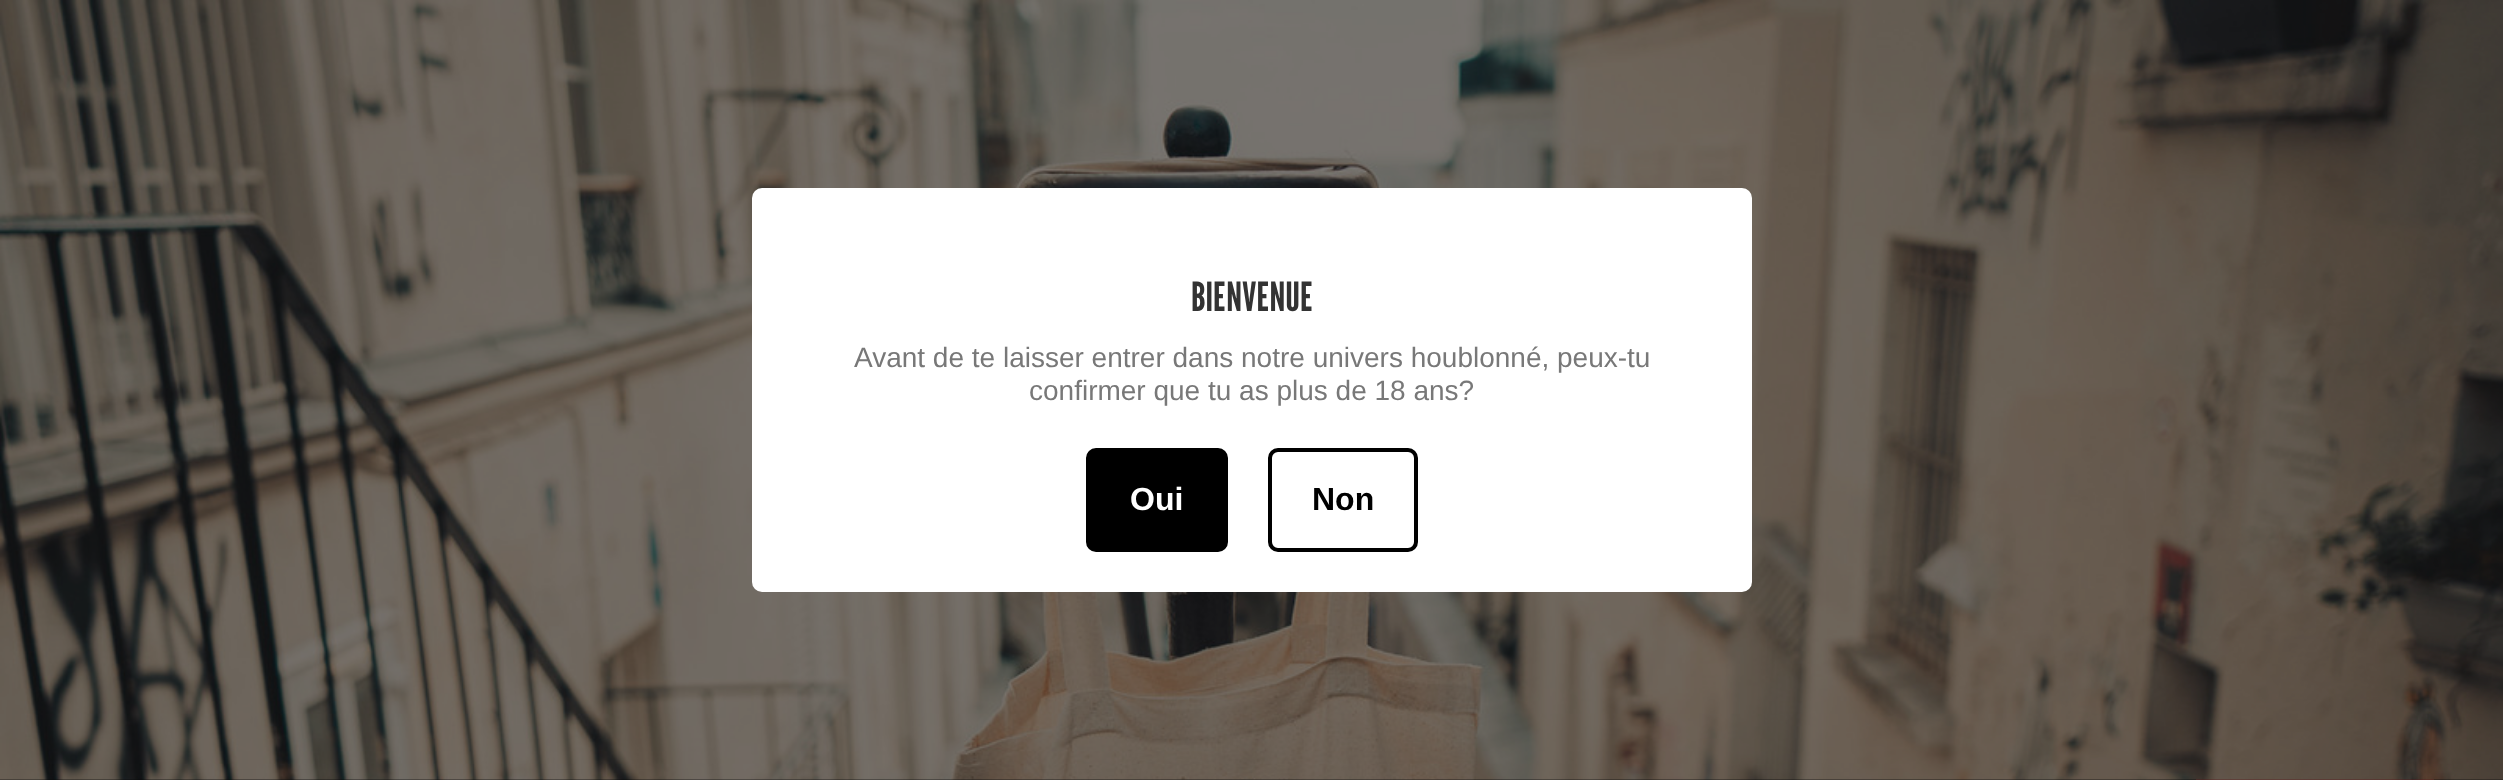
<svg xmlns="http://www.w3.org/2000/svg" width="2503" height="780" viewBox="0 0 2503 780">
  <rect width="100%" height="100%" fill="#090909"/>
  <rect x="2196" y="779" width="238" height="1" fill="#5b171a"/>
  <image x="0" y="0" width="2503" height="780" href="img1.png"/>
  <rect x="752" y="188" width="1000" height="404" rx="10" fill="#ffffff"/>
  <text x="1191" y="311" font-family="League Gothic" font-size="40" fill="#333333">BIENVENUE</text>
  <text x="854" y="367" font-family="Liberation Sans" font-size="28" fill="#787878">Avant de te laisser entrer dans notre univers houblonné, peux-tu</text>
  <text x="1029" y="400" font-family="Liberation Sans" font-size="28" fill="#787878">confirmer que tu as plus de 18 ans?</text>
  <rect x="1088" y="450" width="138" height="100" rx="8" fill="#000000" stroke="#000000" stroke-width="4"/>
  <text x="1130" y="510" font-family="Liberation Sans" font-size="32" font-weight="bold" fill="#ffffff">Oui</text>
  <rect x="1270" y="450" width="146" height="100" rx="8" fill="none" stroke="#000000" stroke-width="4"/>
  <text x="1312" y="510" font-family="Liberation Sans" font-size="32" font-weight="bold" fill="#000000">Non</text>
</svg>
